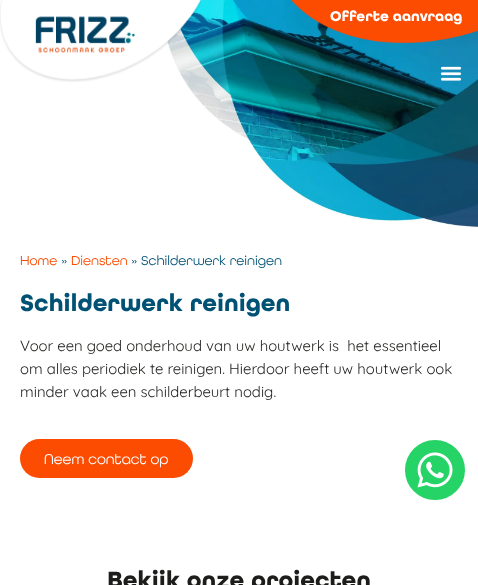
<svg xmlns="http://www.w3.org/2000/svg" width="478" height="585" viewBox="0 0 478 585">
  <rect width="100%" height="100%" fill="#ffffff"/>
  <image x="161" y="0" width="317" height="228" href="img5.png"/>
  <image x="0" y="0" width="201" height="82" href="img1.png"/>
  <image x="291" y="0" width="187" height="43" href="img2.png"/>
  <text x="330" y="21" font-family="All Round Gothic" font-size="15" font-weight="bold" fill="#ffffff">Offerte aanvraag</text>
  <image x="440" y="66" width="22" height="15" href="img3.png"/>
  <circle cx="435" cy="470" r="31.5" fill="#25d366" stroke="#ffffff" stroke-width="3"/>
  <image x="417" y="452" width="36" height="36" href="img4.png"/>
  <text x="20" y="265" font-family="All Round Gothic" font-size="13.6" fill="#fc4c02">Home</text>
  <text x="61" y="265" font-family="All Round Gothic" font-size="13.6" fill="#005275">»</text>
  <text x="71" y="265" font-family="All Round Gothic" font-size="13.6" fill="#fc4c02">Diensten</text>
  <text x="131" y="265" font-family="All Round Gothic" font-size="13.6" fill="#005275">» Schilderwerk reinigen</text>
  <text x="20" y="311" font-family="All Round Gothic" font-size="25" font-weight="bold" fill="#005275">Schilderwerk reinigen</text>
  <text x="20" y="351" font-family="Quicksand" font-size="15" fill="#1d1d1b" xml:space="preserve">Voor een goed onderhoud van uw houtwerk is  het essentieel</text>
  <text x="20" y="374" font-family="Quicksand" font-size="15" fill="#1d1d1b">om alles periodiek te reinigen. Hierdoor heeft uw houtwerk ook</text>
  <text x="20" y="397" font-family="Quicksand" font-size="15" fill="#1d1d1b">minder vaak een schilderbeurt nodig.</text>
  <rect x="20" y="439" width="173" height="39" rx="19.5" fill="#fc4c02"/>
  <text x="44" y="464" font-family="All Round Gothic" font-size="15" fill="#ffffff">Neem contact op</text>
  <text x="107" y="588" font-family="All Round Gothic" font-size="25" font-weight="bold" fill="#1d1d1b">Bekijk onze projecten</text>
</svg>
